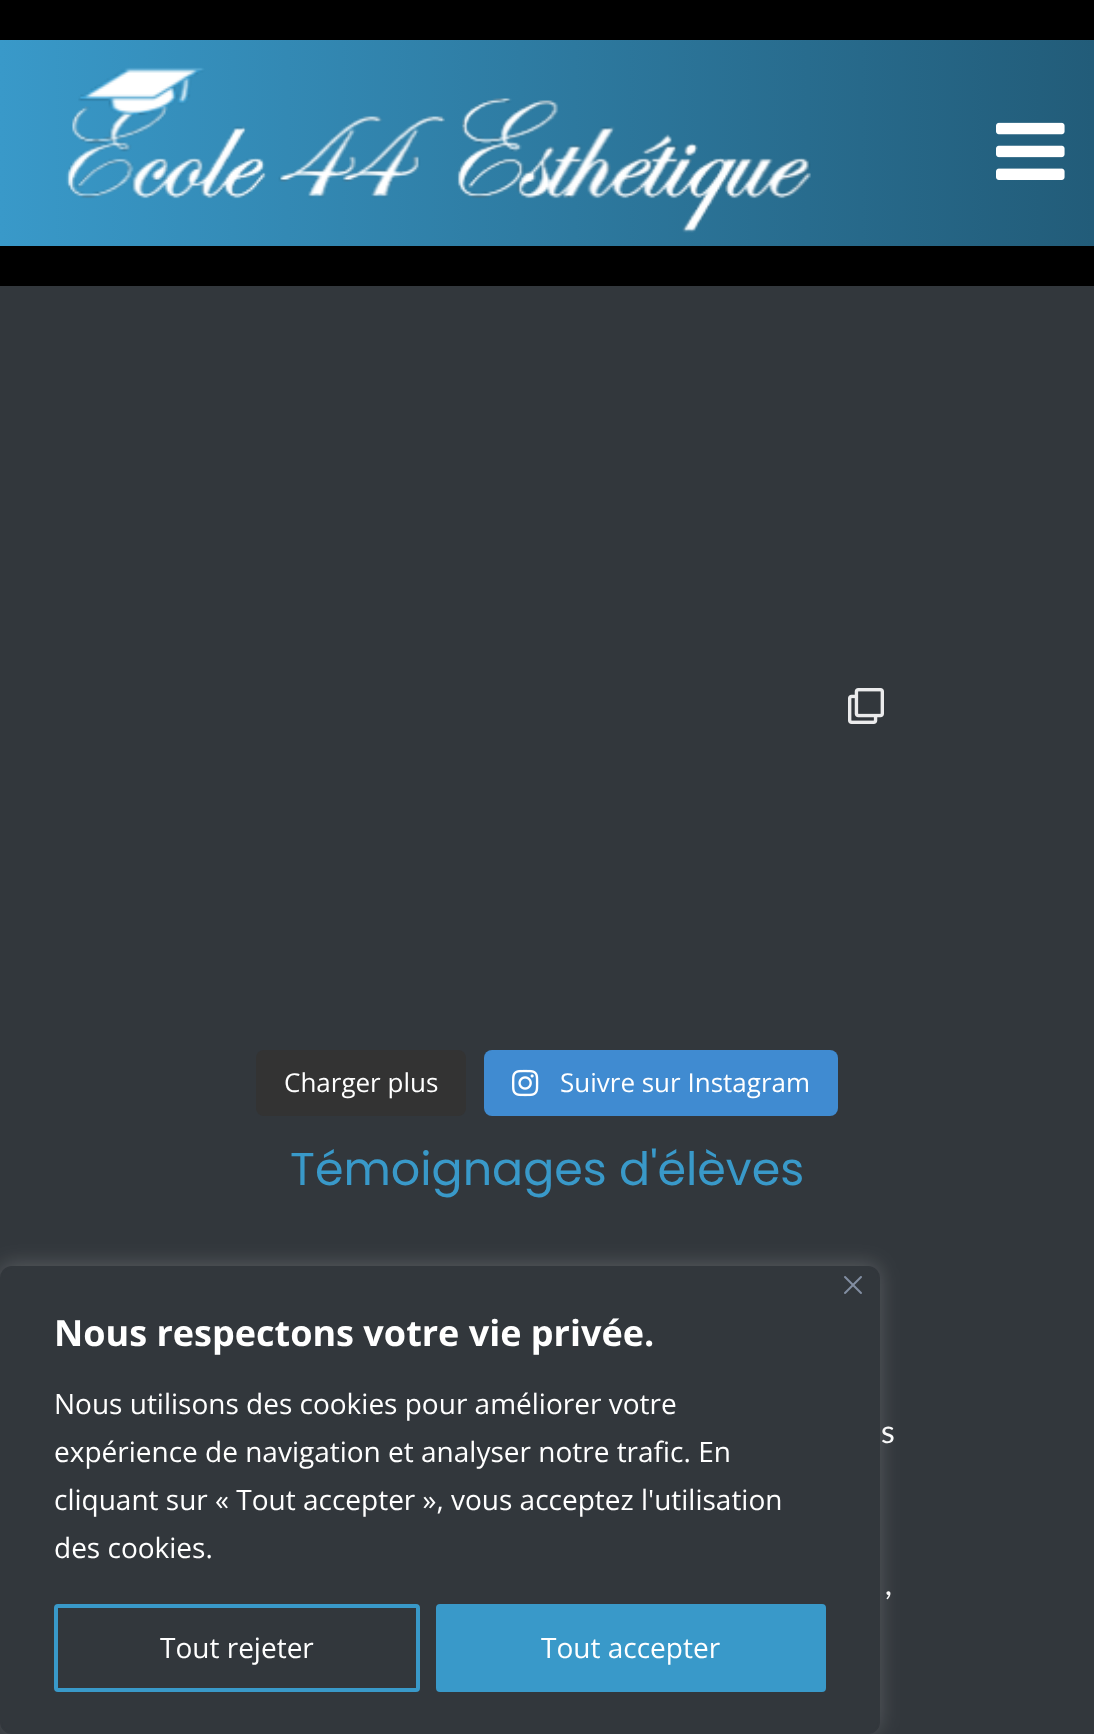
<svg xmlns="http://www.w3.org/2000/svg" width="1094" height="1734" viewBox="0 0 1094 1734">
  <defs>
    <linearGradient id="g1" gradientUnits="userSpaceOnUse" x1="0" y1="143" x2="1094" y2="143"><stop offset="0" stop-color="#3999c9"/><stop offset="1" stop-color="#225c79"/></linearGradient>
    <filter id="blur1" x="-50%" y="-200%" width="200%" height="500%"><feGaussianBlur stdDeviation="10"/></filter>
  </defs>
  <rect width="100%" height="100%" fill="#32373c"/>
  <rect x="0" y="0" width="1094" height="286" fill="#000000"/>
  <rect x="0" y="40" width="1094" height="206" fill="url(#g1)"/>
  <image x="66" y="67" width="745" height="166" href="img1.png"/>
  <image x="996" y="122" width="69" height="58" href="img2.png"/>
  <image x="848" y="688" width="36" height="36" href="img3.png"/>
  <rect x="256" y="1050" width="210" height="66" rx="8" fill="#333333"/>
  <text x="284" y="1092" font-family="Open Sans" font-size="26" fill="#ffffff">Charger plus</text>
  <rect x="484" y="1050" width="354" height="66" rx="8" fill="#408bd1"/>
  <image x="512" y="1069" width="27" height="28" href="img4.png"/>
  <text x="560" y="1092" font-family="Open Sans" font-size="26" fill="#ffffff">Suivre sur Instagram</text>
  <text x="290" y="1185" font-family="Poppins" font-size="46" fill="#3999c9">Témoignages d'élèves</text>
  <text x="881" y="1443" font-family="Lato" font-size="32" fill="#ffffff">s</text>
  <text x="885" y="1595" font-family="Lato" font-size="32" fill="#ffffff">,</text>
  <rect x="0" y="1264" width="880" height="468" rx="12" fill="#acabab" fill-opacity="0.3" filter="url(#blur1)"/>
  <rect x="1" y="1267" width="878" height="466" rx="11" fill="#32373c" stroke="#32373c" stroke-width="2"/>
  <image x="844" y="1276" width="18" height="18" href="img5.png"/>
  <text x="54" y="1346" font-family="Open Sans" font-size="36" font-weight="bold" fill="#ffffff">Nous respectons votre vie privée.</text>
  <text x="54" y="1414" font-family="Open Sans" font-size="28" fill="#ffffff">Nous utilisons des cookies pour améliorer votre</text>
  <text x="54" y="1462" font-family="Open Sans" font-size="28" fill="#ffffff">expérience de navigation et analyser notre trafic. En</text>
  <text x="54" y="1510" font-family="Open Sans" font-size="28" fill="#ffffff">cliquant sur « Tout accepter », vous acceptez l'utilisation</text>
  <text x="54" y="1558" font-family="Open Sans" font-size="28" fill="#ffffff">des cookies.</text>
  <rect x="56" y="1606" width="362" height="84" rx="2" fill="none" stroke="#3999c9" stroke-width="4"/>
  <text x="160" y="1658" font-family="Open Sans" font-size="28" fill="#ffffff">Tout rejeter</text>
  <rect x="438" y="1606" width="386" height="84" rx="2" fill="#3999c9" stroke="#3999c9" stroke-width="4"/>
  <text x="541" y="1658" font-family="Open Sans" font-size="28" fill="#ffffff">Tout accepter</text>
</svg>
